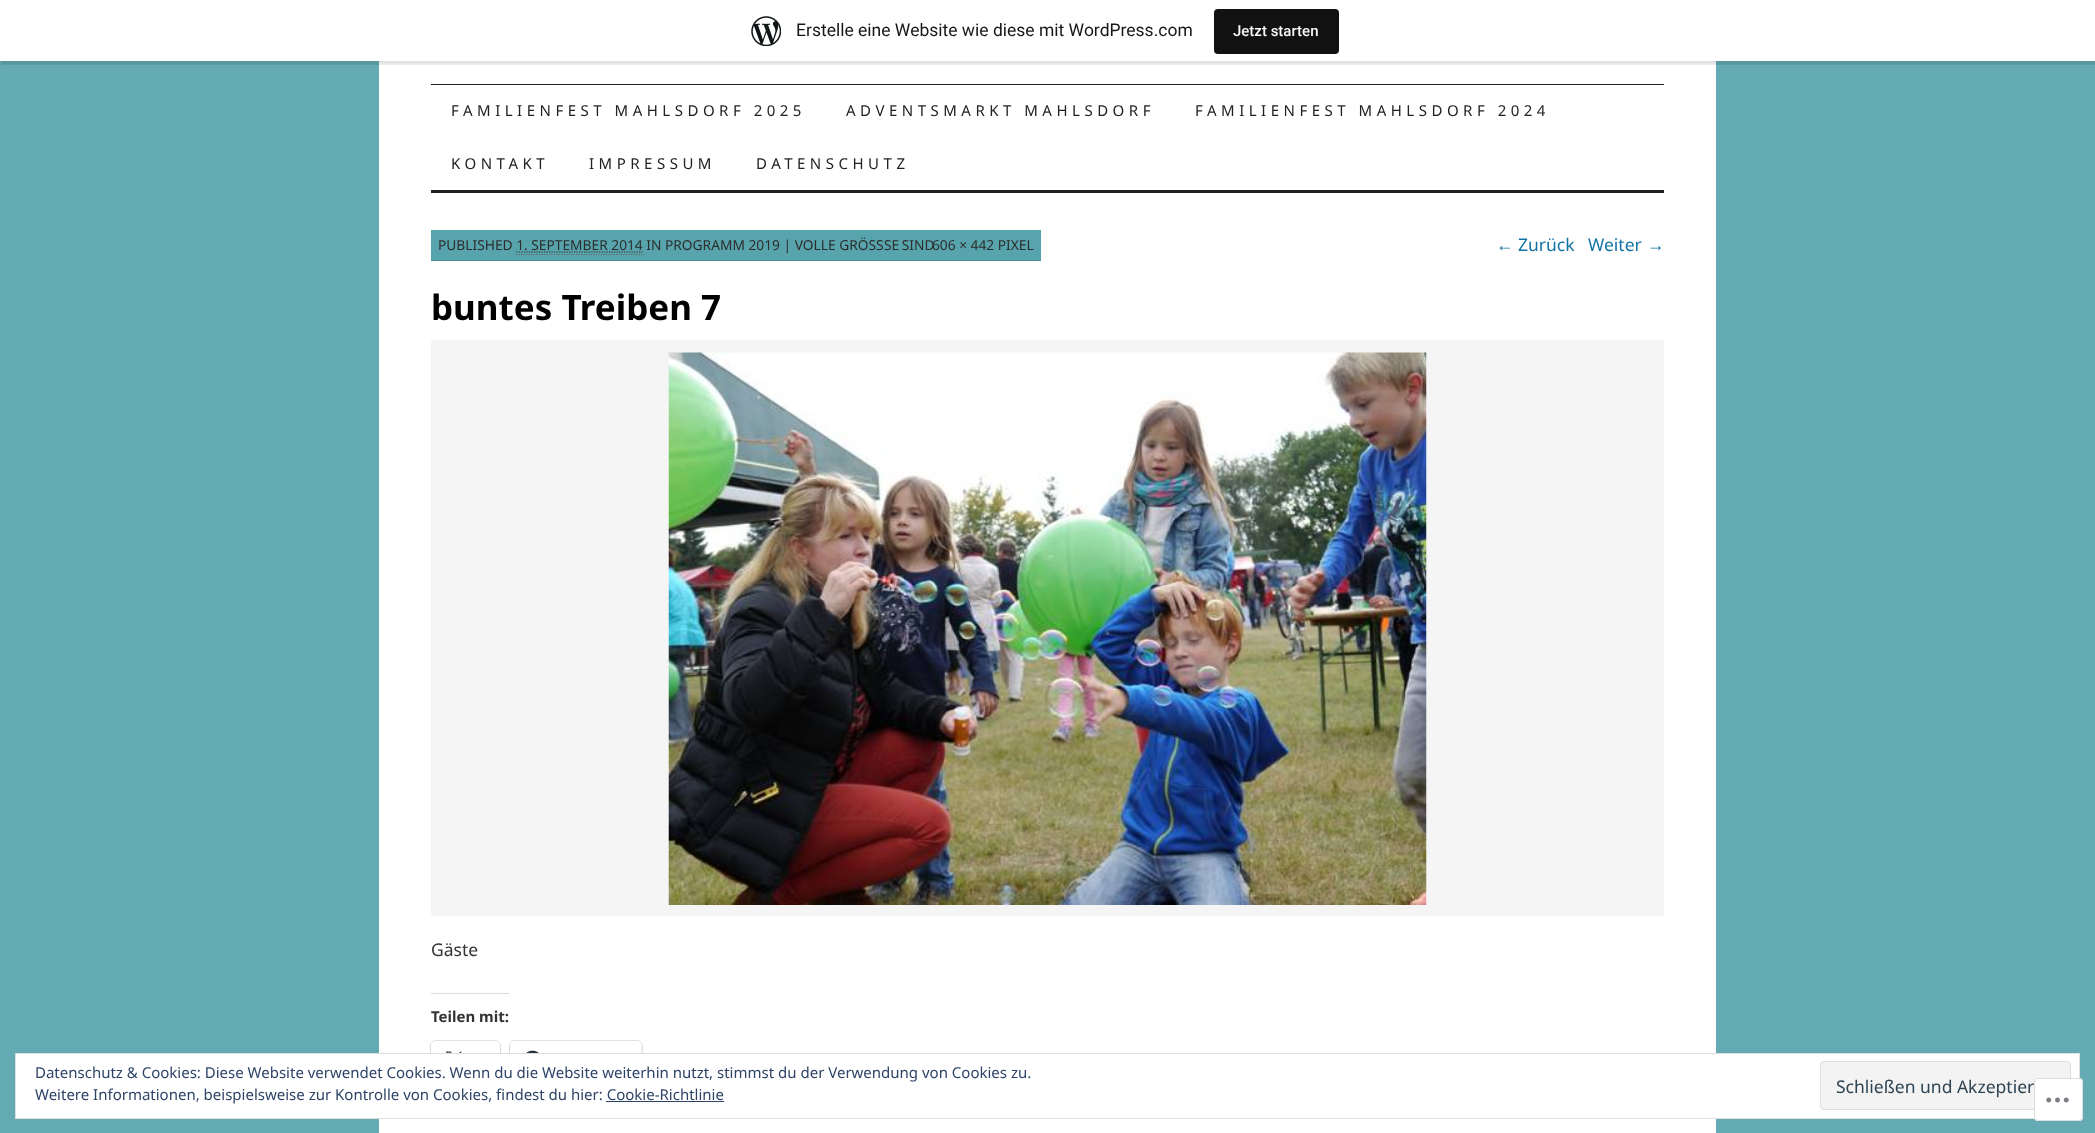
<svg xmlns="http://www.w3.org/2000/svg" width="2095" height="1133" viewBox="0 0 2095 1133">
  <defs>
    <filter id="blur1" x="-50%" y="-200%" width="200%" height="500%"><feGaussianBlur stdDeviation="1"/></filter>
  </defs>
  <rect width="100%" height="100%" fill="#64aab2"/>
  <rect x="379" y="61" width="1337" height="1072" fill="#ffffff"/>
  <rect x="0" y="1" width="2095" height="62" fill="#000000" fill-opacity="0.05" filter="url(#blur1)"/>
  <path d="M1 61V65H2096V4H2095V61Z" fill="#000000" fill-opacity="0.08"/>
  <rect x="0" y="0" width="2095" height="61" fill="#ffffff"/>
  <image x="751" y="16" width="30" height="30" href="img1.png"/>
  <text x="796" y="36" font-family="Roboto" font-size="17.5" fill="#171717">Erstelle eine Website wie diese mit WordPress.com</text>
  <rect x="1214" y="9" width="125" height="45" rx="4" fill="#111111"/>
  <text x="1233" y="36" font-family="Roboto" font-size="15" font-weight="500" fill="#f6f7f7">Jetzt starten</text>
  <rect x="431" y="84" width="1233" height="1" fill="#222222"/>
  <rect x="431" y="190" width="1233" height="3" fill="#222222"/>
  <text x="451" y="116" font-family="Noto Sans" font-size="15" letter-spacing="4.5" fill="#222222">FAMILIENFEST MAHLSDORF 2025</text>
  <text x="846" y="116" font-family="Noto Sans" font-size="15" letter-spacing="4.5" fill="#222222">ADVENTSMARKT MAHLSDORF</text>
  <text x="1195" y="116" font-family="Noto Sans" font-size="15" letter-spacing="4.5" fill="#222222">FAMILIENFEST MAHLSDORF 2024</text>
  <text x="451" y="169" font-family="Noto Sans" font-size="15" letter-spacing="4.5" fill="#222222">KONTAKT</text>
  <text x="589" y="169" font-family="Noto Sans" font-size="15" letter-spacing="4.5" fill="#222222">IMPRESSUM</text>
  <text x="756" y="169" font-family="Noto Sans" font-size="15" letter-spacing="4.5" fill="#222222">DATENSCHUTZ</text>
  <rect x="431" y="230" width="610" height="30" fill="#57a4ac"/>
  <rect x="431" y="260" width="610" height="1" fill="#4b9199"/>
  <text x="438" y="250" font-family="Noto Sans" font-size="13.75" fill="#2d2d2d">PUBLISHED 1. SEPTEMBER 2014 IN PROGRAMM 2019 | VOLLE GRÖSS</text>
  <text x="884" y="250" word-spacing="-1" font-family="Noto Sans" font-size="13.75" fill="#2d2d2d">SE SIND</text>
  <text x="932" y="250" font-family="Noto Sans" font-size="13.75" fill="#2d2d2d">606 × 442 PIXEL</text>
  <path d="M516.5 252H643" fill="none" stroke="#2d2d2d" stroke-width="1.2" stroke-dasharray="1.25 1.25"/>
  <path d="M516 254.5H644" fill="none" stroke="#666666" stroke-width="1.2" stroke-dasharray="1.25 1.25"/>
  <text x="1496" y="251" font-family="Liberation Sans" font-size="17.5" fill="#1274a5">←</text>
  <text x="1518" y="251" font-family="Noto Sans" font-size="17.5" fill="#1274a5">Zurück</text>
  <text x="1588" y="251" font-family="Noto Sans" font-size="17.5" fill="#1274a5">Weiter</text>
  <text x="1647" y="251" font-family="Liberation Sans" font-size="17.5" fill="#1274a5">→</text>
  <text x="431" y="320" font-family="Noto Sans" font-size="35" font-weight="bold" fill="#000000">buntes Treiben 7</text>
  <rect x="431" y="340" width="1233" height="576" fill="#f5f5f5"/>
  <image x="668" y="352" width="759" height="553" href="img2.png"/>
  <text x="431" y="956" font-family="Noto Sans" font-size="17.5" fill="#333333">Gäste</text>
  <rect x="431" y="993" width="78" height="1" fill="#dcdcde"/>
  <text x="431" y="1022" font-family="Noto Sans" font-size="15" font-weight="bold" fill="#333333">Teilen mit:</text>
  <rect x="430.5" y="1040.5" width="70" height="39" rx="5.5" fill="none" stroke="#e0e0e0"/>
  <rect x="431" y="1043" width="69" height="37" rx="5" fill="#000000" fill-opacity="0.12" filter="url(#blur1)"/>
  <rect x="431" y="1041" width="69" height="38" rx="5" fill="#ffffff"/>
  <image x="445" y="1051" width="17" height="2" href="img3.png"/>
  <rect x="509.5" y="1040.5" width="133" height="39" rx="5.5" fill="none" stroke="#e0e0e0"/>
  <rect x="510" y="1043" width="131" height="37" rx="5" fill="#000000" fill-opacity="0.12" filter="url(#blur1)"/>
  <rect x="510" y="1041" width="131" height="38" rx="5" fill="#ffffff"/>
  <image x="526" y="1050" width="13" height="3" href="img4.png"/>
  <rect x="15.5" y="1053.5" width="2064" height="65" fill="#ffffff" stroke="#dedede"/>
  <text x="35" y="1078" font-family="Noto Sans" font-size="15" fill="#2e4467">Datenschutz &amp; Cookies: Diese Website verwendet Cookies. Wenn du die Website weiterhin nutzt, stimmst du der Verwendung von Cookies zu.</text>
  <text x="35" y="1100" font-family="Noto Sans" font-size="15" fill="#2e4467">Weitere Informationen, beispielsweise zur Kontrolle von Cookies, findest du hier: Cookie-Richtlinie</text>
  <rect x="1820.5" y="1061.5" width="250" height="48" rx="3.5" fill="#f3f3f3" stroke="#dedede"/>
  <text x="1836" y="1093" font-family="Noto Sans" font-size="17.5" fill="#2e4453">Schließen und Akzeptier</text>
  <rect x="606" y="1101" width="118" height="1" fill="#2e4467"/>
  <rect x="2034" y="1078" width="49" height="43" rx="4" fill="#ffffff" fill-opacity="0.98"/>
  <rect x="2034.5" y="1078.5" width="48" height="42" rx="3.5" fill="none" stroke="#dcdcde" stroke-opacity="0.98"/>
  <image x="2046" y="1097" width="23" height="6" href="img5.png"/>
</svg>
